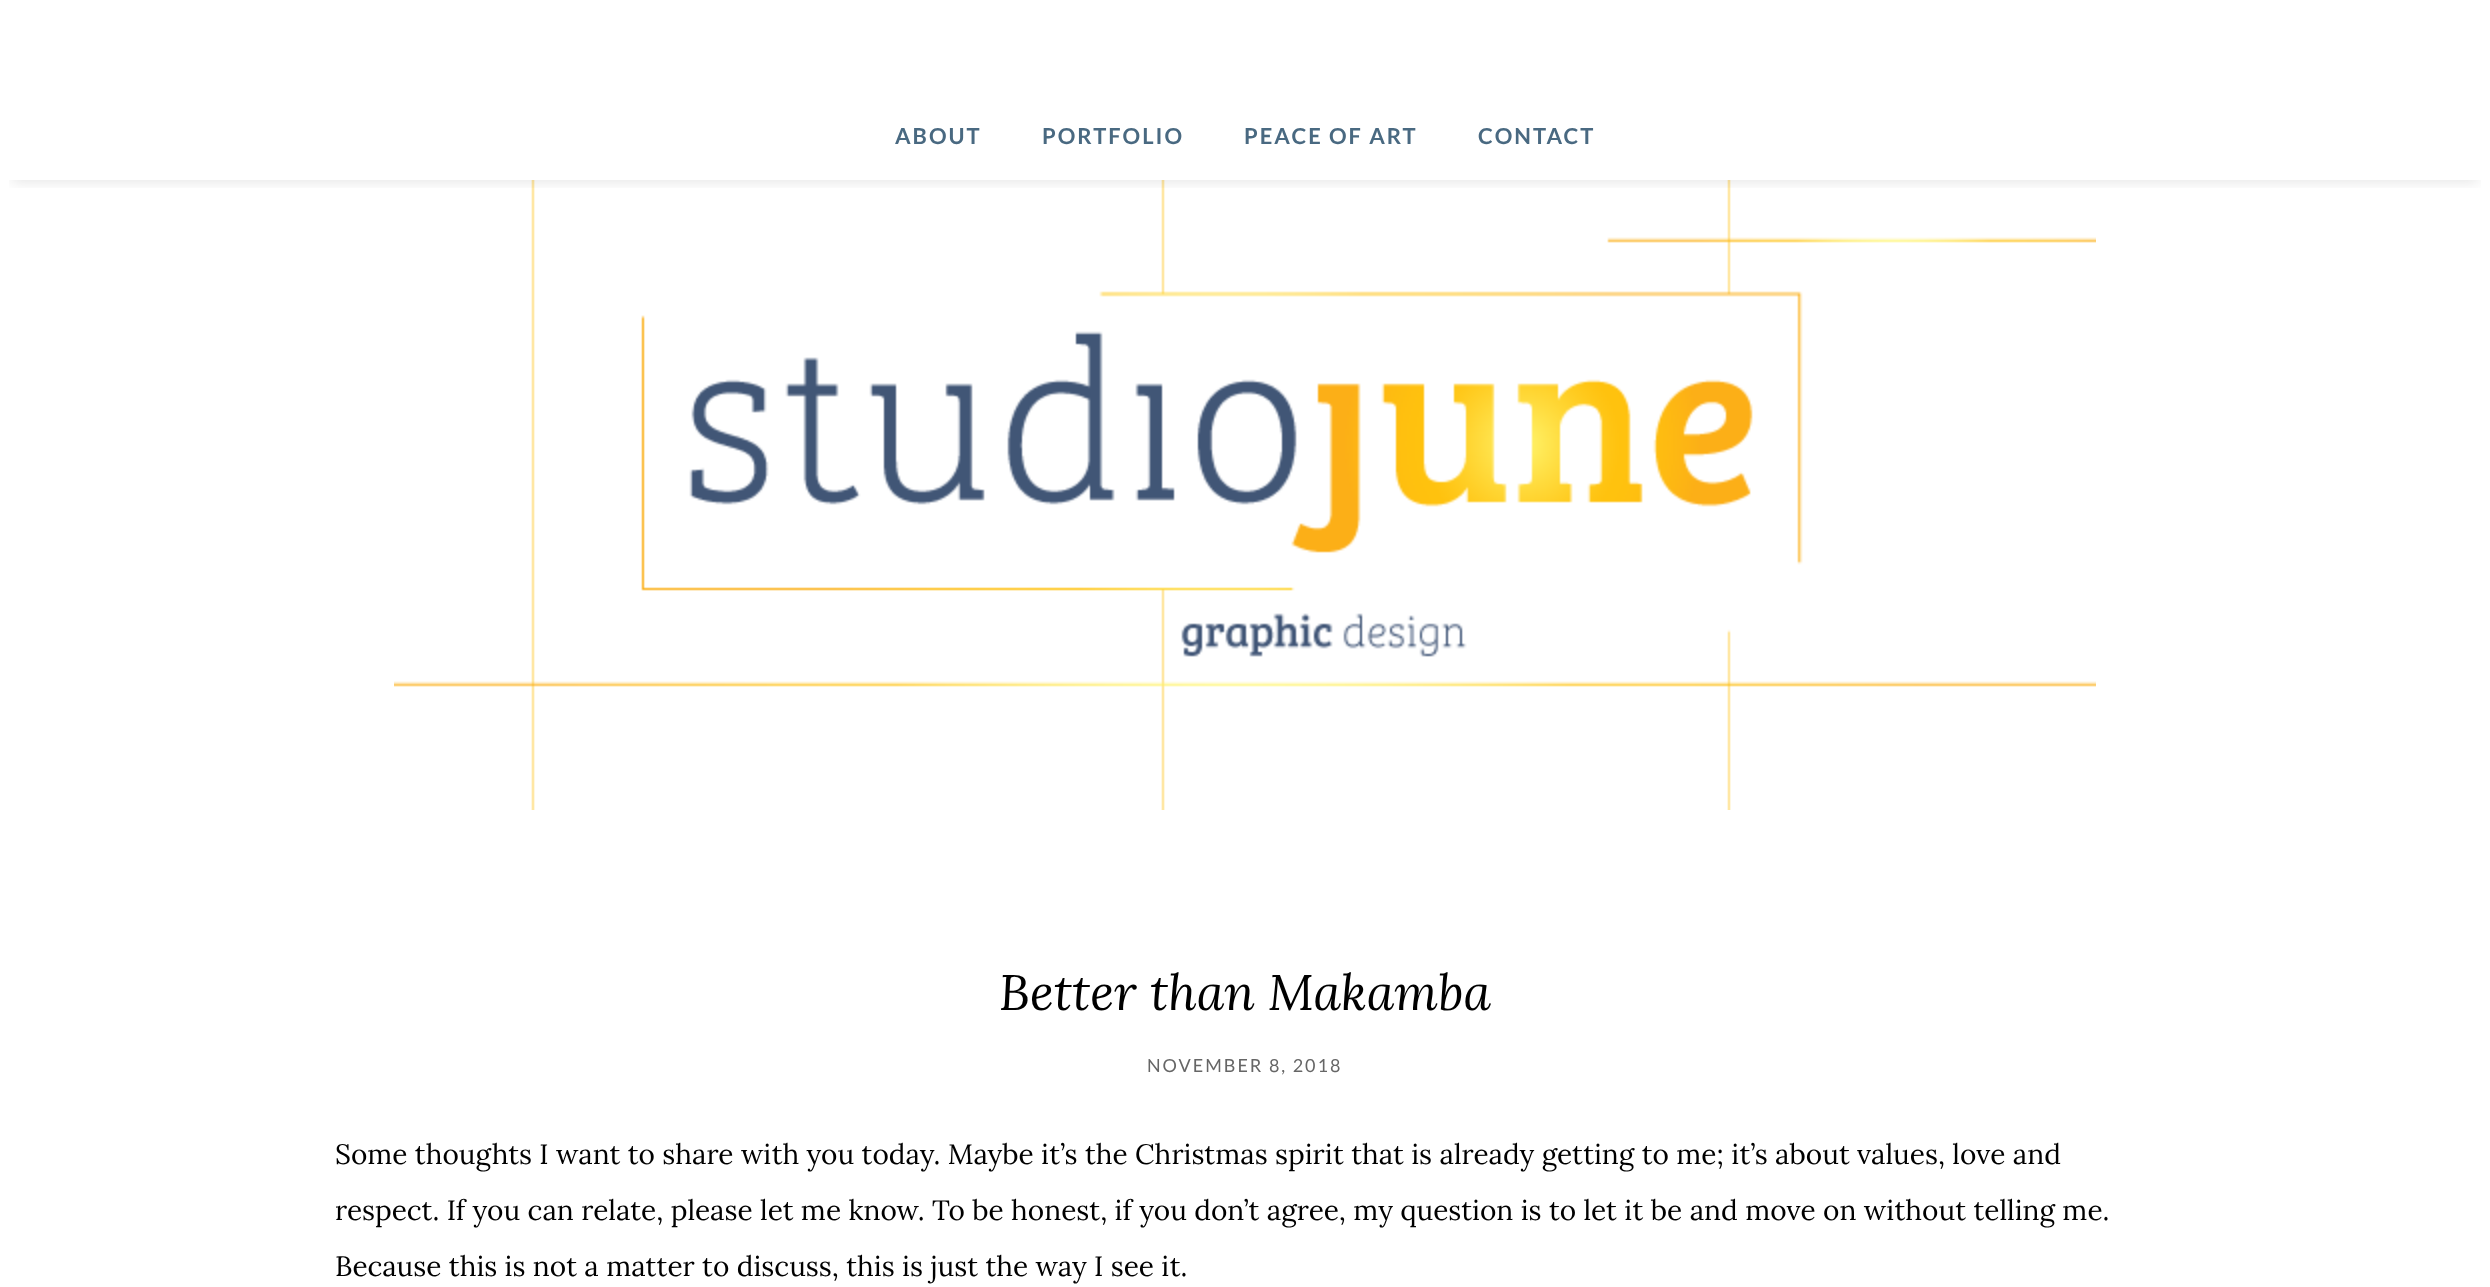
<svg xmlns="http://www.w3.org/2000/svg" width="2490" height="1287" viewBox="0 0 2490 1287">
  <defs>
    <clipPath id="clip1"><rect x="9" y="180" width="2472" height="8"/></clipPath>
    <filter id="blur1" x="-50%" y="-200%" width="200%" height="500%"><feGaussianBlur stdDeviation="7"/></filter>
  </defs>
  <rect width="100%" height="100%" fill="#ffffff"/>
  <image x="394" y="180" width="1702" height="630" href="img1.png"/>
  <g clip-path="url(#clip1)">
    <rect x="12" y="116" width="2466" height="66" fill="#000000" fill-opacity="0.1" filter="url(#blur1)"/>
  </g>
  <text x="895" y="144" font-family="Lato" font-size="22" font-weight="bold" letter-spacing="2" fill="#496981">ABOUT</text>
  <text x="1042" y="144" font-family="Lato" font-size="22" font-weight="bold" letter-spacing="2" fill="#496981">PORTFOLIO</text>
  <text x="1244" y="144" font-family="Lato" font-size="22" font-weight="bold" letter-spacing="2" fill="#496981">PEACE OF ART</text>
  <text x="1478" y="144" font-family="Lato" font-size="22" font-weight="bold" letter-spacing="2" fill="#496981">CONTACT</text>
  <text x="999" y="1010" font-family="Lora" font-size="50" font-style="italic" fill="#000000">Better than Makamba</text>
  <text x="1147" y="1072" font-family="Lato" font-size="18" letter-spacing="2" fill="#666666">NOVEMBER 8, 2018</text>
  <text x="335" y="1164" font-family="Lora" font-size="28" fill="#000000">Some thoughts I want to share with you today. Maybe it’s the Christmas spirit that is already getting to me; it’s about values, love and</text>
  <text x="335" y="1220" font-family="Lora" font-size="28" fill="#000000">respect. If you can relate, please let me know. To be honest, if you don’t agree, my question is to let it be and move on without telling me.</text>
  <text x="335" y="1276" font-family="Lora" font-size="28" fill="#000000">Because this is not a matter to discuss, this is just the way I see it.</text>
</svg>
